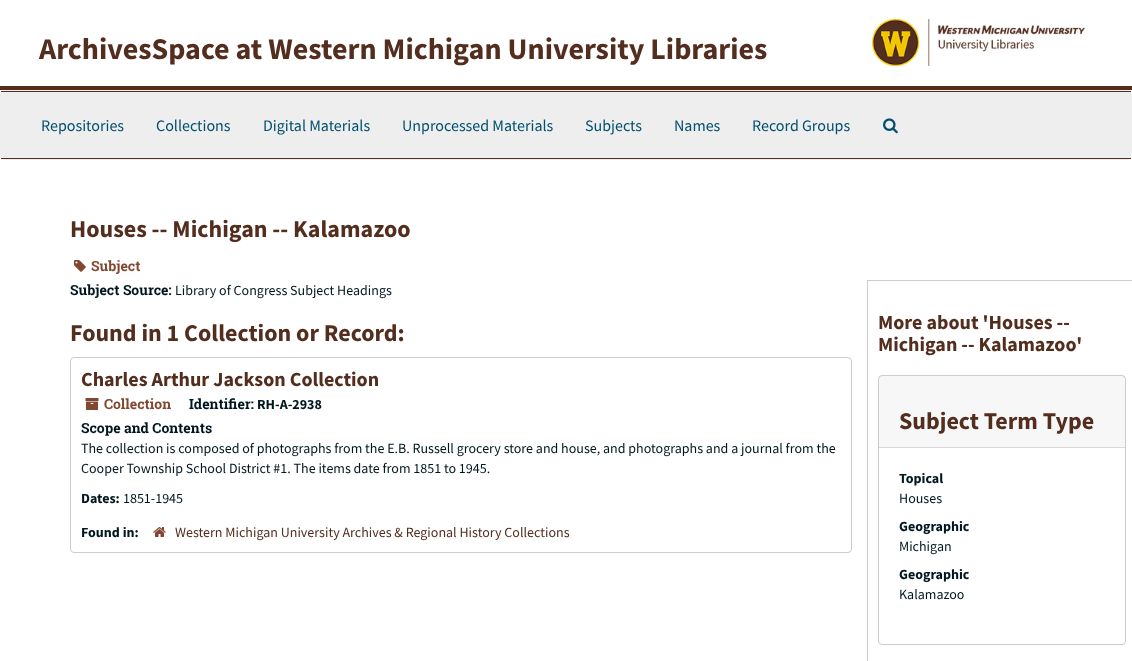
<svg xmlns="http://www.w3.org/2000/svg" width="1132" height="661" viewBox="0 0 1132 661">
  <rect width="100%" height="100%" fill="#ffffff"/>
  <rect x="0" y="86" width="1132" height="4" fill="#532e1f"/>
  <text x="39" y="59" font-family="Source Sans Pro" font-size="30" font-weight="bold" fill="#532e1f">ArchivesSpace at Western Michigan University Libraries</text>
  <image x="872" y="19" width="213" height="47" href="img1.png"/>
  <rect x="0.5" y="90.5" width="1131" height="69" rx="3.5" fill="none" stroke="#eeeeee"/>
  <rect x="1" y="92" width="1130" height="66" fill="#eeeeee"/>
  <rect x="1" y="91" width="1130" height="1" fill="#532e1f"/>
  <rect x="1" y="158" width="1130" height="1" fill="#532e1f"/>
  <text x="41" y="131" font-family="Source Sans Pro" font-size="16" fill="#004f6f">Repositories</text>
  <text x="156" y="131" font-family="Source Sans Pro" font-size="16" fill="#004f6f">Collections</text>
  <text x="263" y="131" font-family="Source Sans Pro" font-size="16" fill="#004f6f">Digital Materials</text>
  <text x="402" y="131" font-family="Source Sans Pro" font-size="16" fill="#004f6f">Unprocessed Materials</text>
  <text x="585" y="131" font-family="Source Sans Pro" font-size="16" fill="#004f6f">Subjects</text>
  <text x="674" y="131" font-family="Source Sans Pro" font-size="16" fill="#004f6f">Names</text>
  <text x="752" y="131" font-family="Source Sans Pro" font-size="16" fill="#004f6f">Record Groups</text>
  <image x="883" y="118" width="15" height="16" href="img2.png"/>
  <text x="70" y="237" font-family="Source Sans Pro" font-size="24" font-weight="bold" fill="#532e1f">Houses -- Michigan -- Kalamazoo</text>
  <image x="74" y="260" width="12" height="12" href="img3.png"/>
  <text x="91" y="271" font-family="Roboto Slab" font-size="14" font-weight="bold" fill="#824730">Subject</text>
  <text x="70" y="295" font-family="Roboto Slab" font-size="14" font-weight="bold" fill="#00171f">Subject Source:</text>
  <text x="175" y="295" font-family="Source Sans Pro" font-size="14" fill="#00171f">Library of Congress Subject Headings</text>
  <text x="70" y="341" font-family="Source Sans Pro" font-size="24" font-weight="bold" fill="#532e1f">Found in 1 Collection or Record:</text>
  <rect x="70.5" y="357.5" width="781" height="195" rx="3.5" fill="none" stroke="#cccccc"/>
  <text x="81" y="386" font-family="Source Sans Pro" font-size="20" font-weight="bold" fill="#532e1f">Charles Arthur Jackson Collection</text>
  <image x="85" y="398" width="14" height="12" href="img4.png"/>
  <text x="104" y="409" font-family="Roboto Slab" font-size="14" font-weight="bold" fill="#824730">Collection</text>
  <text x="189" y="409" font-family="Roboto Slab" font-size="14" font-weight="bold" fill="#00171f">Identifier:</text>
  <text x="257" y="409" font-family="Source Sans Pro" font-size="14" font-weight="bold" fill="#00171f">RH-A-2938</text>
  <text x="81" y="433" font-family="Roboto Slab" font-size="14" font-weight="bold" fill="#00171f">Scope and Contents</text>
  <text x="81" y="453" font-family="Source Sans Pro" font-size="14" fill="#00171f">The collection is composed of photographs from the E.B. Russell grocery store and house, and photographs and a journal from the</text>
  <text x="81" y="473" font-family="Source Sans Pro" font-size="14" fill="#00171f">Cooper Township School District #1. The items date from 1851 to 1945.</text>
  <text x="81" y="503" font-family="Source Sans Pro" font-size="14" font-weight="bold" fill="#00171f">Dates:</text>
  <text x="123" y="503" font-family="Source Sans Pro" font-size="14" fill="#00171f">1851-1945</text>
  <text x="81" y="537" font-family="Source Sans Pro" font-size="14" font-weight="bold" fill="#00171f">Found in:</text>
  <image x="153" y="527" width="13" height="10" href="img5.png"/>
  <text x="175" y="537" font-family="Source Sans Pro" font-size="14" fill="#532e1f">Western Michigan University Archives &amp; Regional History Collections</text>
  <rect x="867.5" y="280.5" width="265" height="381" fill="none" stroke="#cccccc"/>
  <text x="878" y="329" font-family="Source Sans Pro" font-size="20" font-weight="bold" fill="#532e1f">More about 'Houses --</text>
  <text x="878" y="351" font-family="Source Sans Pro" font-size="20" font-weight="bold" fill="#532e1f">Michigan -- Kalamazoo'</text>
  <rect x="878.5" y="375.5" width="247" height="269" rx="3.5" fill="none" stroke="#cccccc"/>
  <rect x="879" y="376" width="246" height="71" fill="#000000" fill-opacity="0.03"/>
  <rect x="879" y="447" width="246" height="1" fill="#d8d8d8"/>
  <text x="899" y="429" font-family="Source Sans Pro" font-size="24" font-weight="bold" fill="#532e1f">Subject Term Type</text>
  <text x="899" y="483" font-family="Source Sans Pro" font-size="14" font-weight="bold" fill="#00171f">Topical</text>
  <text x="899" y="503" font-family="Source Sans Pro" font-size="14" fill="#00171f">Houses</text>
  <text x="899" y="531" font-family="Source Sans Pro" font-size="14" font-weight="bold" fill="#00171f">Geographic</text>
  <text x="899" y="551" font-family="Source Sans Pro" font-size="14" fill="#00171f">Michigan</text>
  <text x="899" y="579" font-family="Source Sans Pro" font-size="14" font-weight="bold" fill="#00171f">Geographic</text>
  <text x="899" y="599" font-family="Source Sans Pro" font-size="14" fill="#00171f">Kalamazoo</text>
</svg>
